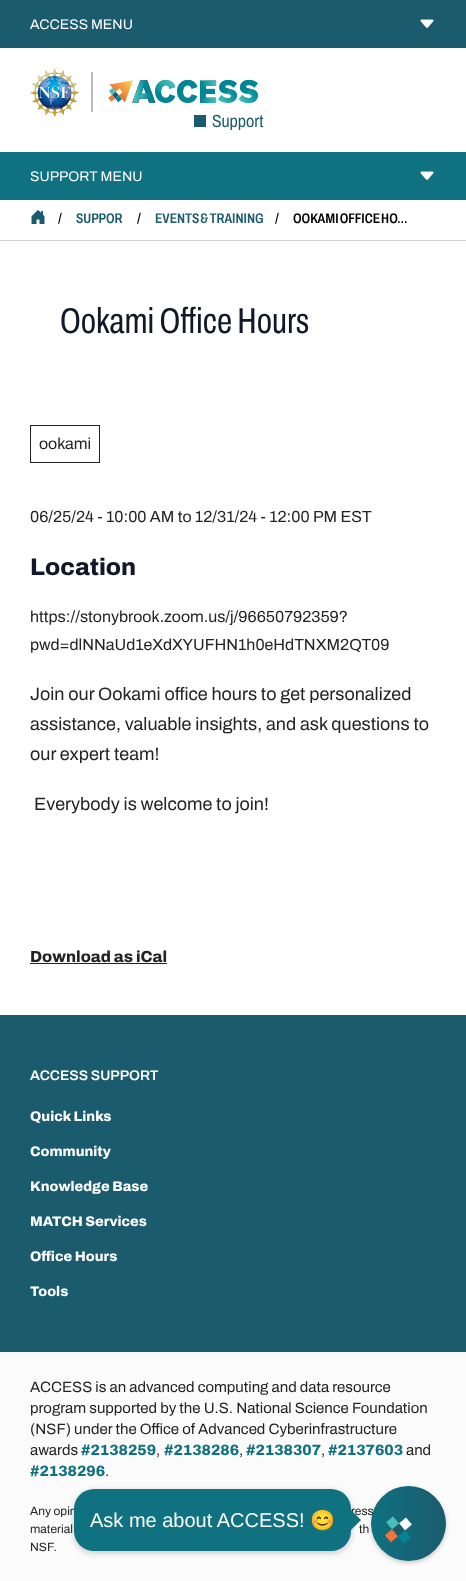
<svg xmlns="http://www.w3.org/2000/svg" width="466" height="1581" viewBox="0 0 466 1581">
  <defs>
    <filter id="blur1" x="-50%" y="-200%" width="200%" height="500%"><feGaussianBlur stdDeviation="3"/></filter>
    <filter id="blur2" x="-50%" y="-200%" width="200%" height="500%"><feGaussianBlur stdDeviation="2"/></filter>
    <linearGradient id="g1" gradientUnits="userSpaceOnUse" x1="371" y1="1524" x2="446" y2="1524"><stop offset="0" stop-color="#107180"/><stop offset="1" stop-color="#1a5b6e"/></linearGradient>
  </defs>
  <rect width="100%" height="100%" fill="#ffffff"/>
  <rect x="0" y="0" width="466" height="48" fill="#1a5b6e"/>
  <text x="30" y="29" font-family="'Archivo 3'" font-size="14" fill="#ffffff">ACCESS MENU</text>
  <image x="420" y="19" width="14" height="9" href="img1.png"/>
  <image x="30" y="68" width="49" height="49" href="img2.png"/>
  <rect x="91" y="72" width="2" height="40" fill="#bbbbbb"/>
  <image x="108" y="80" width="150" height="23" href="img3.png"/>
  <rect x="194" y="115" width="12" height="12" fill="#1a5b6e"/>
  <text x="212" y="127" font-family="Archivo" font-size="17.5" fill="#1a5b6e">Support</text>
  <rect x="0" y="152" width="466" height="48" fill="#107180"/>
  <text x="30" y="181" font-family="'Archivo 3'" font-size="14" fill="#ffffff">SUPPORT MENU</text>
  <image x="420" y="171" width="14" height="9" href="img4.png"/>
  <rect x="0" y="240" width="466" height="1" fill="#d2d2d2"/>
  <image x="31" y="210" width="14" height="14" href="img5.png"/>
  <text x="58" y="223" font-family="'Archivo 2'" font-size="14" font-weight="600" fill="#000000">/</text>
  <text x="76" y="223" font-family="'Archivo 2'" font-size="14" font-weight="600" fill="#1a5b6e">SUPPOR</text>
  <text x="137" y="223" font-family="'Archivo 2'" font-size="14" font-weight="600" fill="#000000">/</text>
  <text x="155" y="223" word-spacing="-1" font-family="'Archivo 2'" font-size="14" font-weight="600" fill="#1a5b6e">EVENTS &amp; TRAINING</text>
  <text x="275" y="223" font-family="'Archivo 2'" font-size="14" font-weight="600" fill="#000000">/</text>
  <text x="293" y="223" word-spacing="-1" font-family="'Archivo 2'" font-size="14" font-weight="600" fill="#000000">OOKAMI OFFICE HO…</text>
  <text x="60" y="333" font-family="'Archivo 2'" font-size="36" fill="#111827">Ookami Office Hours</text>
  <rect x="30.5" y="425.5" width="69" height="37" fill="none" stroke="#232323"/>
  <text x="39" y="449" font-family="'Archivo 3'" font-size="16" fill="#232323">ookami</text>
  <text x="30" y="522" font-family="'Archivo 3'" font-size="16" fill="#232323">06/25/24 - 10:00 AM to 12/31/24 - 12:00 PM EST</text>
  <text x="30" y="575" font-family="Archivo" font-size="24" font-weight="800" fill="#111827">Location</text>
  <text x="30" y="622" font-family="'Archivo 3'" font-size="16" fill="#232323">https://stonybrook.zoom.us/j/96650792359?</text>
  <text x="30" y="650" font-family="'Archivo 3'" font-size="16" fill="#232323">pwd=dlNNaUd1eXdXYUFHN1h0eHdTNXM2QT09</text>
  <text x="30" y="700" font-family="'Archivo 3'" font-size="18" fill="#232323">Join our Ookami office hours to get personalized</text>
  <text x="30" y="730" font-family="'Archivo 3'" font-size="18" fill="#232323">assistance, valuable insights, and ask questions to</text>
  <text x="30" y="760" font-family="'Archivo 3'" font-size="18" fill="#232323">our expert team!</text>
  <text x="34" y="810" font-family="'Archivo 3'" font-size="18" fill="#232323">Everybody is welcome to join!</text>
  <text x="30" y="962" font-family="Archivo" font-size="16" font-weight="800" fill="#232323">Download as iCal</text>
  <rect x="30" y="963" width="137" height="1" fill="#232323"/>
  <rect x="0" y="1015" width="466" height="337" fill="#1a5b6e"/>
  <text x="30" y="1080" font-family="Archivo" font-size="14" font-weight="600" fill="#ffffff">ACCESS SUPPORT</text>
  <text x="30" y="1121" font-family="Archivo" font-size="14" font-weight="800" fill="#ffffff">Quick Links</text>
  <text x="30" y="1156" font-family="Archivo" font-size="14" font-weight="800" fill="#ffffff">Community</text>
  <text x="30" y="1191" font-family="Archivo" font-size="14" font-weight="800" fill="#ffffff">Knowledge Base</text>
  <text x="30" y="1226" font-family="Archivo" font-size="14" font-weight="800" fill="#ffffff">MATCH Services</text>
  <text x="30" y="1261" font-family="Archivo" font-size="14" font-weight="800" fill="#ffffff">Office Hours</text>
  <text x="30" y="1296" font-family="Archivo" font-size="14" font-weight="800" fill="#ffffff">Tools</text>
  <rect x="0" y="1352" width="466" height="229" fill="#fbfbfb"/>
  <text x="30" y="1392" font-family="'Archivo 3'" font-size="15" fill="#232323">ACCESS is an advanced computing and data resource</text>
  <text x="30" y="1413" font-family="'Archivo 3'" font-size="15" fill="#232323">program supported by the U.S. National Science Foundation</text>
  <text x="30" y="1434" font-family="'Archivo 3'" font-size="15" fill="#232323">(NSF) under the Office of Advanced Cyberinfrastructure</text>
  <text x="30" y="1455" font-family="'Archivo 3'" font-size="15" fill="#232323">awards</text>
  <text x="81" y="1455" font-family="Archivo" font-size="15" font-weight="800" fill="#107180">#2138259</text>
  <text x="156" y="1455" font-family="'Archivo 3'" font-size="15" fill="#232323">,</text>
  <text x="164" y="1455" font-family="Archivo" font-size="15" font-weight="800" fill="#107180">#2138286</text>
  <text x="239" y="1455" font-family="'Archivo 3'" font-size="15" fill="#232323">,</text>
  <text x="246" y="1455" font-family="Archivo" font-size="15" font-weight="800" fill="#107180">#2138307</text>
  <text x="321" y="1455" font-family="'Archivo 3'" font-size="15" fill="#232323">,</text>
  <text x="328" y="1455" font-family="Archivo" font-size="15" font-weight="800" fill="#107180">#2137603</text>
  <text x="406" y="1455" font-family="'Archivo 3'" font-size="15" fill="#232323">and</text>
  <text x="30" y="1476" font-family="Archivo" font-size="15" font-weight="800" fill="#107180">#2138296</text>
  <text x="105" y="1476" font-family="'Archivo 3'" font-size="15" fill="#232323">.</text>
  <text x="30" y="1515" font-family="'Archivo 3'" font-size="12" fill="#232323">Any opin</text>
  <text x="351" y="1515" font-family="'Archivo 3'" font-size="12" fill="#232323">ress</text>
  <text x="30" y="1533" font-family="'Archivo 3'" font-size="12" fill="#232323">material</text>
  <text x="359" y="1533" font-family="'Archivo 3'" font-size="12" fill="#232323">th</text>
  <text x="30" y="1551" font-family="'Archivo 3'" font-size="12" fill="#232323">NSF.</text>
  <rect x="74" y="1491" width="277" height="62" rx="20" fill="#000000" fill-opacity="0.2" filter="url(#blur1)"/>
  <rect x="74" y="1489" width="277" height="62" rx="20" fill="#107180"/>
  <text x="90" y="1527" font-family="Liberation Sans" font-size="20" fill="#ffffff">Ask me about ACCESS!</text>
  <text x="310" y="1527" font-family="Noto Color Emoji" font-size="20" fill="#ffffff">😊</text>
  <path d="M351 1530V1510L361 1520Z" fill="#107180"/>
  <rect x="371" y="1488" width="75" height="75" rx="37.5" fill="#000000" fill-opacity="0.2" filter="url(#blur2)"/>
  <circle cx="408.5" cy="1523.5" r="37.5" fill="url(#g1)"/>
  <image x="385" y="1516" width="27" height="27" href="img6.png"/>
</svg>
